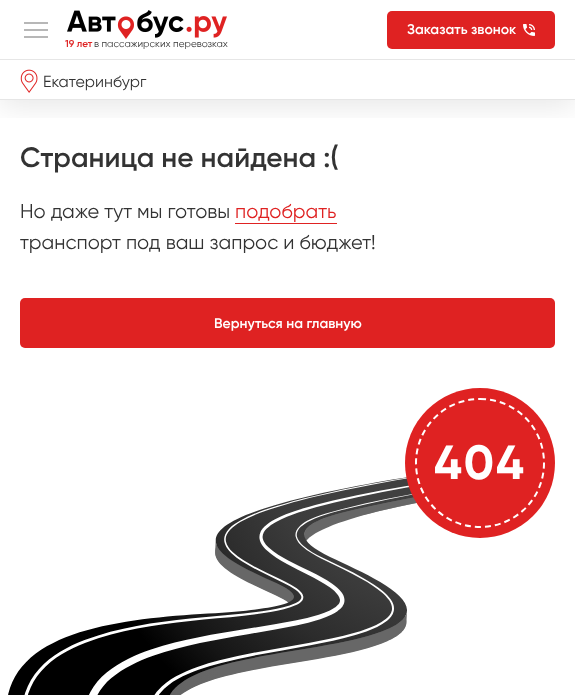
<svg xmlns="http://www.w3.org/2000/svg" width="575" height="695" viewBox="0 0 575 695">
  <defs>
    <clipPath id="clip1"><rect x="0" y="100" width="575" height="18"/></clipPath>
    <filter id="blur1" x="-50%" y="-200%" width="200%" height="500%"><feGaussianBlur stdDeviation="15"/></filter>
  </defs>
  <rect width="100%" height="100%" fill="#ffffff"/>
  <g clip-path="url(#clip1)">
    <rect x="0" y="5" width="575" height="100" fill="#000000" fill-opacity="0.1" filter="url(#blur1)"/>
  </g>
  <rect x="0" y="59" width="575" height="1" fill="#e6e6e6"/>
  <rect x="24" y="22" width="24" height="2" fill="#b7b7b7"/>
  <rect x="24" y="29" width="24" height="2" fill="#b7b7b7"/>
  <rect x="24" y="36" width="24" height="2" fill="#b7b7b7"/>
  <rect x="387" y="11" width="168" height="38" rx="5" fill="#df2222"/>
  <text x="407" y="34" font-family="Gilroy" font-size="14" font-weight="600" fill="#ffffff">Заказать звонок</text>
  <image x="523" y="24" width="12" height="12" href="img1.png"/>
  <image x="67" y="10" width="160" height="29" href="img2.png"/>
  <text x="65" y="47" font-family="Gilroy" font-size="10" font-weight="600" fill="#df2222">19 лет</text>
  <text x="94" y="47" font-family="Gilroy" font-size="10" fill="#333333">в пассажирских перевозках</text>
  <rect x="0" y="99" width="575" height="1" fill="#e6e6e6"/>
  <image x="20" y="69" width="18" height="24" href="img3.png"/>
  <text x="43" y="87" font-family="Gilroy" font-size="16" fill="#333333">Екатеринбург</text>
  <text x="20" y="167" font-family="Gilroy" font-size="28" font-weight="600" fill="#333333">Страница не найдена :(</text>
  <text x="20" y="218" font-family="Gilroy" font-size="20" fill="#333333">Но даже тут мы готовы</text>
  <rect x="235" y="223" width="102" height="1" fill="#df2222"/>
  <text x="235" y="218" font-family="Gilroy" font-size="20" fill="#df2222">подобрать</text>
  <text x="20" y="249" font-family="Gilroy" font-size="20" fill="#333333">транспорт под ваш запрос и бюджет!</text>
  <rect x="20" y="298" width="535" height="50" rx="5" fill="#df2222"/>
  <text x="214" y="328" font-family="Gilroy" font-size="14" font-weight="600" fill="#ffffff">Вернуться на главную</text>
  <image x="8" y="477" width="409" height="218" href="img4.png"/>
  <circle cx="480" cy="463" r="75" fill="#df2222"/>
  <path d="M480 399C515.5 399 544 427.5 544 463C544 498.5 515.5 527 480 527C444.5 527 416 498.5 416 463C416 427.5 444.5 399 480 399Z" fill="none" stroke="#ffffff" stroke-width="2" stroke-dasharray="6 4"/>
  <text x="434" y="479" font-family="Gilroy" font-size="48" font-weight="bold" letter-spacing="2" fill="#ffffff">404</text>
</svg>
